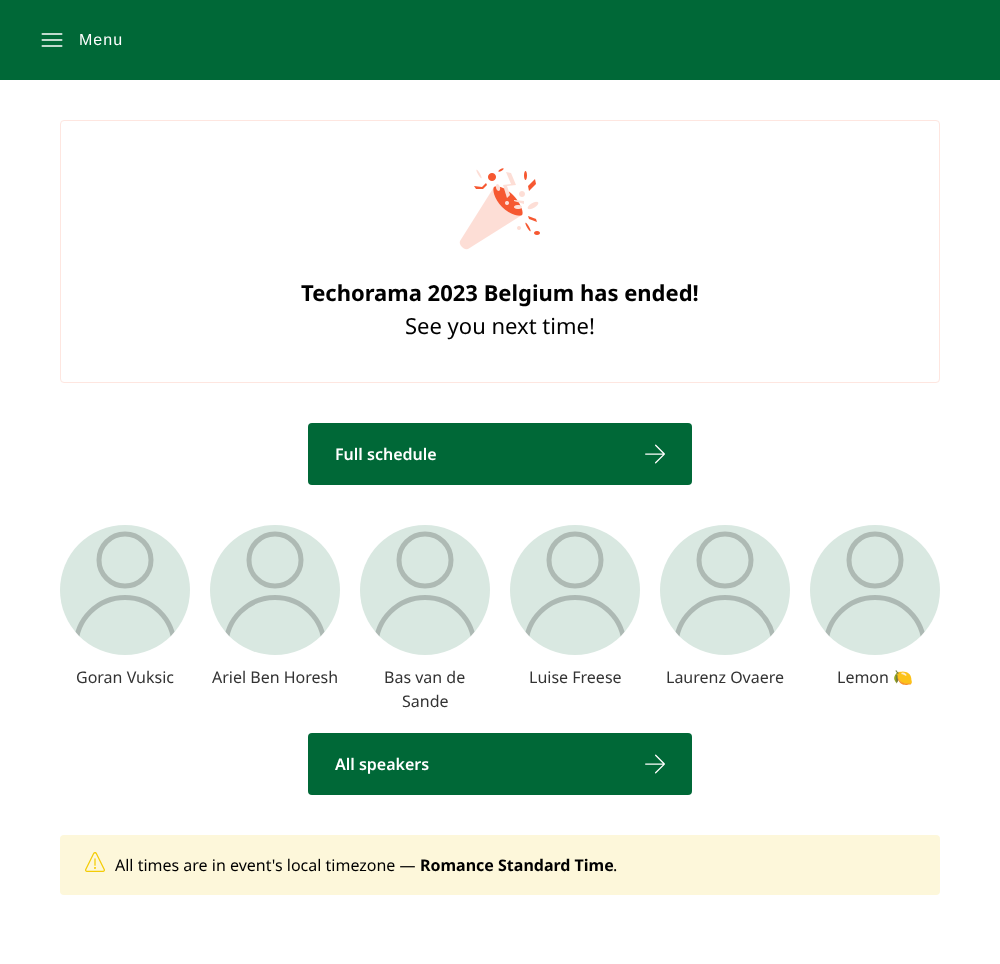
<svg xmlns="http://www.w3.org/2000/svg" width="1000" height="964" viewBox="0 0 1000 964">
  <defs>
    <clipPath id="clip1"><rect x="60" y="525" width="130" height="130" rx="65"/></clipPath>
    <clipPath id="clip2"><rect x="210" y="525" width="130" height="130" rx="65"/></clipPath>
    <clipPath id="clip3"><rect x="360" y="525" width="130" height="130" rx="65"/></clipPath>
    <clipPath id="clip4"><rect x="510" y="525" width="130" height="130" rx="65"/></clipPath>
    <clipPath id="clip5"><rect x="660" y="525" width="130" height="130" rx="65"/></clipPath>
    <clipPath id="clip6"><rect x="810" y="525" width="130" height="130" rx="65"/></clipPath>
  </defs>
  <rect width="100%" height="100%" fill="#ffffff"/>
  <rect x="0" y="0" width="1000" height="80" fill="#006837"/>
  <image x="41" y="33" width="22" height="14" href="img1.png"/>
  <text x="79" y="45" font-family="Liberation Sans" font-size="16" letter-spacing="1" fill="#ffffff">Menu</text>
  <rect x="60.5" y="120.5" width="879" height="262" rx="3.5" fill="none" stroke="#fee6e0"/>
  <image x="459" y="168" width="81" height="82" href="img2.png"/>
  <text x="301" y="301" font-family="Noto Sans" font-size="22" font-weight="bold" fill="#000000">Techorama 2023 Belgium has ended!</text>
  <text x="405" y="334" font-family="Noto Sans" font-size="22" fill="#000000">See you next time!</text>
  <rect x="308" y="423" width="384" height="62" rx="4" fill="#006837"/>
  <text x="335" y="460" font-family="Noto Sans" font-size="16" font-weight="600" fill="#ffffff">Full schedule</text>
  <image x="645" y="444" width="20" height="20" href="img3.png"/>
  <circle cx="125" cy="590" r="65" fill="#d9e8e1"/>
  <circle cx="125" cy="560" r="26" fill="none" stroke="#aebab4" stroke-width="5"/>
  <g clip-path="url(#clip1)">
    <path d="M76 646C76 619.5 98 597.5 125 597.5C152 597.5 174 619.5 174 646" fill="none" stroke="#000000" stroke-opacity="0.2" stroke-width="5" stroke-linecap="round" stroke-linejoin="round"/>
  </g>
  <text x="76" y="683" font-family="Noto Sans" font-size="16" fill="#333333">Goran Vuksic</text>
  <circle cx="275" cy="590" r="65" fill="#d9e8e1"/>
  <circle cx="275" cy="560" r="26" fill="none" stroke="#aebab4" stroke-width="5"/>
  <g clip-path="url(#clip2)">
    <path d="M226 646C226 619.5 248 597.5 275 597.5C302 597.5 324 619.5 324 646" fill="none" stroke="#000000" stroke-opacity="0.2" stroke-width="5" stroke-linecap="round" stroke-linejoin="round"/>
  </g>
  <text x="212" y="683" font-family="Noto Sans" font-size="16" fill="#333333">Ariel Ben Horesh</text>
  <circle cx="425" cy="590" r="65" fill="#d9e8e1"/>
  <circle cx="425" cy="560" r="26" fill="none" stroke="#aebab4" stroke-width="5"/>
  <g clip-path="url(#clip3)">
    <path d="M376 646C376 619.5 398 597.5 425 597.5C452 597.5 474 619.5 474 646" fill="none" stroke="#000000" stroke-opacity="0.2" stroke-width="5" stroke-linecap="round" stroke-linejoin="round"/>
  </g>
  <text x="384" y="683" font-family="Noto Sans" font-size="16" fill="#333333">Bas van de</text>
  <text x="402" y="707" font-family="Noto Sans" font-size="16" fill="#333333">Sande</text>
  <circle cx="575" cy="590" r="65" fill="#d9e8e1"/>
  <circle cx="575" cy="560" r="26" fill="none" stroke="#aebab4" stroke-width="5"/>
  <g clip-path="url(#clip4)">
    <path d="M526 646C526 619.5 548 597.5 575 597.5C602 597.5 624 619.5 624 646" fill="none" stroke="#000000" stroke-opacity="0.2" stroke-width="5" stroke-linecap="round" stroke-linejoin="round"/>
  </g>
  <text x="529" y="683" font-family="Noto Sans" font-size="16" fill="#333333">Luise Freese</text>
  <circle cx="725" cy="590" r="65" fill="#d9e8e1"/>
  <circle cx="725" cy="560" r="26" fill="none" stroke="#aebab4" stroke-width="5"/>
  <g clip-path="url(#clip5)">
    <path d="M676 646C676 619.5 698 597.5 725 597.5C752 597.5 774 619.5 774 646" fill="none" stroke="#000000" stroke-opacity="0.2" stroke-width="5" stroke-linecap="round" stroke-linejoin="round"/>
  </g>
  <text x="666" y="683" font-family="Noto Sans" font-size="16" fill="#333333">Laurenz Ovaere</text>
  <circle cx="875" cy="590" r="65" fill="#d9e8e1"/>
  <circle cx="875" cy="560" r="26" fill="none" stroke="#aebab4" stroke-width="5"/>
  <g clip-path="url(#clip6)">
    <path d="M826 646C826 619.5 848 597.5 875 597.5C902 597.5 924 619.5 924 646" fill="none" stroke="#000000" stroke-opacity="0.2" stroke-width="5" stroke-linecap="round" stroke-linejoin="round"/>
  </g>
  <text x="837" y="683" font-family="Noto Sans" font-size="16" fill="#333333">Lemon</text>
  <text x="893" y="683" font-family="Noto Color Emoji" font-size="16" fill="#333333">🍋</text>
  <rect x="308" y="733" width="384" height="62" rx="4" fill="#006837"/>
  <text x="335" y="770" font-family="Noto Sans" font-size="16" font-weight="600" fill="#ffffff">All speakers</text>
  <image x="645" y="754" width="20" height="20" href="img4.png"/>
  <rect x="60" y="835" width="880" height="60" rx="4" fill="#fdf7da"/>
  <image x="85" y="852" width="20" height="20" href="img5.png"/>
  <text x="115" y="871" font-family="Noto Sans" font-size="16" fill="#000000">All times are in event's local timezone —</text>
  <text x="420" y="871" font-family="Noto Sans" font-size="16" font-weight="bold" fill="#000000">Romance Standard Time</text>
  <text x="613" y="871" font-family="Noto Sans" font-size="16" fill="#000000">.</text>
</svg>
